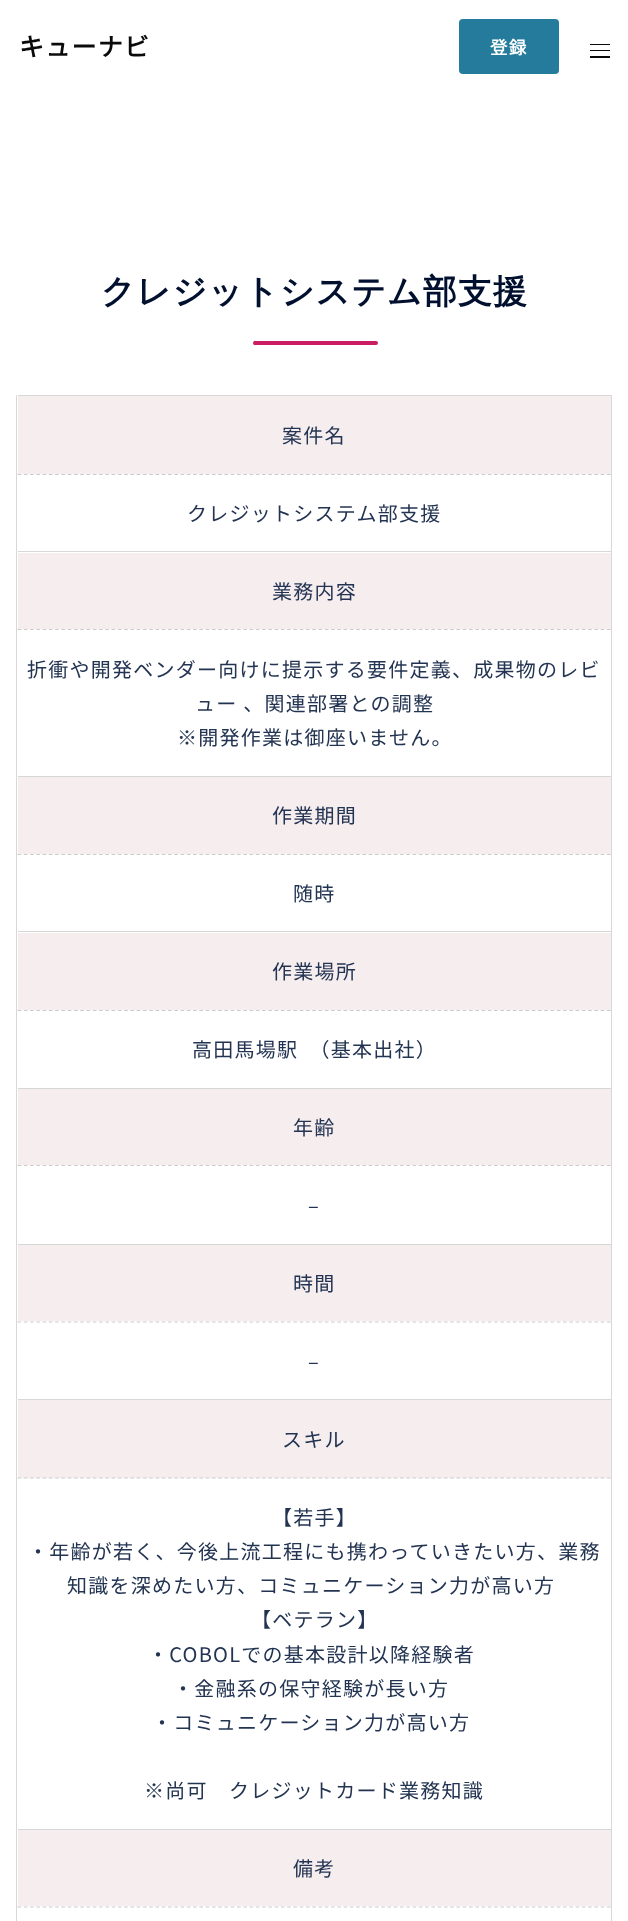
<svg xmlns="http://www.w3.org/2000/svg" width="628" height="1921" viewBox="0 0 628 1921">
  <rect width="100%" height="100%" fill="#ffffff"/>
  <text x="19" y="56" font-family="Noto Sans JP" font-size="25" font-weight="bold" letter-spacing="1.25" fill="#0a0a0a">キューナビ</text>
  <rect x="459" y="19" width="100" height="55" rx="4" fill="#247b9c"/>
  <text x="490" y="54" font-family="Noto Sans JP" font-size="17.5" font-weight="bold" letter-spacing="1.25" fill="#ffffff">登録</text>
  <rect x="590" y="44" width="20" height="1" fill="#0a0a0a"/>
  <rect x="590" y="50" width="20" height="1" fill="#0a0a0a"/>
  <rect x="590" y="56" width="20" height="2" fill="#0a0a0a"/>
  <text x="101" y="303" font-family="WenQuanYi Zen Hei" font-size="33.75" font-weight="bold" letter-spacing="1.25" fill="#00102e">クレジットシステム部支援</text>
  <rect x="253" y="341" width="125" height="4" rx="2" fill="#ca1d62"/>
  <rect x="254" y="341" width="1" height="4" fill="#ca1d62"/>
  <rect x="611" y="395" width="1" height="1526" fill="#d7d7d7"/>
  <rect x="16" y="395" width="1" height="1526" fill="#d7d7d7"/>
  <rect x="18" y="396" width="593" height="78" fill="#f6edef"/>
  <rect x="18" y="395" width="593" height="1" fill="#d7d7d7"/>
  <text x="282" y="443" font-family="Noto Sans JP" font-size="20" font-weight="100" letter-spacing="1.25" fill="#233452">案件名</text>
  <path d="M17.5 474.5H611" fill="none" stroke="#cccccc" stroke-width="1.2" stroke-dasharray="3.75 2.52"/>
  <text x="187" y="521" font-family="Noto Sans JP" font-size="20" font-weight="100" letter-spacing="1.25" fill="#233452">クレジットシステム部支援</text>
  <rect x="18" y="553" width="593" height="76" fill="#f6edef"/>
  <rect x="18" y="551" width="593" height="1" fill="#d7d7d7"/>
  <text x="272" y="599" font-family="Noto Sans JP" font-size="20" font-weight="100" letter-spacing="1.25" fill="#233452">業務内容</text>
  <path d="M17.5 629.5H611" fill="none" stroke="#cccccc" stroke-width="1.2" stroke-dasharray="3.75 2.52"/>
  <text x="27" y="677" font-family="Noto Sans JP" font-size="20" font-weight="100" letter-spacing="1.25" fill="#233452">折衝や開発ベンダー向けに提示する要件定義、成果物のレビ</text>
  <text x="195" y="711" font-family="Noto Sans JP" font-size="20" font-weight="100" letter-spacing="1.25" fill="#233452">ュー 、関連部署との調整</text>
  <text x="177" y="745" font-family="Noto Sans JP" font-size="20" font-weight="100" letter-spacing="1.25" fill="#233452">※開発作業は御座いません。</text>
  <rect x="18" y="777" width="593" height="77" fill="#f6edef"/>
  <rect x="18" y="776" width="593" height="1" fill="#d7d7d7"/>
  <text x="272" y="823" font-family="Noto Sans JP" font-size="20" font-weight="100" letter-spacing="1.25" fill="#233452">作業期間</text>
  <path d="M17.5 854.5H611" fill="none" stroke="#cccccc" stroke-width="1.2" stroke-dasharray="3.75 2.52"/>
  <text x="293" y="901" font-family="Noto Sans JP" font-size="20" font-weight="100" letter-spacing="1.25" fill="#233452">随時</text>
  <rect x="18" y="933" width="593" height="77" fill="#f6edef"/>
  <rect x="18" y="931" width="593" height="1" fill="#d7d7d7"/>
  <text x="272" y="979" font-family="Noto Sans JP" font-size="20" font-weight="100" letter-spacing="1.25" fill="#233452">作業場所</text>
  <path d="M17.5 1010.5H611" fill="none" stroke="#cccccc" stroke-width="1.2" stroke-dasharray="3.75 2.52"/>
  <text x="192" y="1057" font-family="Noto Sans JP" font-size="20" font-weight="100" letter-spacing="1.25" fill="#233452">高田馬場駅　（基本出社）</text>
  <rect x="18" y="1089" width="593" height="76" fill="#f6edef"/>
  <rect x="18" y="1088" width="593" height="1" fill="#d7d7d7"/>
  <text x="293" y="1135" font-family="Noto Sans JP" font-size="20" font-weight="100" letter-spacing="1.25" fill="#233452">年齢</text>
  <path d="M17.5 1165.5H611" fill="none" stroke="#cccccc" stroke-width="1.2" stroke-dasharray="3.75 2.52"/>
  <text x="308" y="1213" font-family="Noto Sans JP" font-size="20" font-weight="100" letter-spacing="1.25" fill="#233452">–</text>
  <rect x="18" y="1245" width="593" height="76" fill="#f6edef"/>
  <rect x="18" y="1244" width="593" height="1" fill="#d7d7d7"/>
  <text x="293" y="1291" font-family="Noto Sans JP" font-size="20" font-weight="100" letter-spacing="1.25" fill="#233452">時間</text>
  <path d="M17.5 1322H611" fill="none" stroke="#cccccc" stroke-width="1.2" stroke-dasharray="3.75 2.52"/>
  <text x="308" y="1369" font-family="Noto Sans JP" font-size="20" font-weight="100" letter-spacing="1.25" fill="#233452">–</text>
  <rect x="18" y="1400" width="593" height="78" fill="#f6edef"/>
  <rect x="18" y="1399" width="593" height="1" fill="#d7d7d7"/>
  <text x="282" y="1447" font-family="Noto Sans JP" font-size="20" font-weight="100" letter-spacing="1.25" fill="#233452">スキル</text>
  <path d="M17.5 1478H611" fill="none" stroke="#cccccc" stroke-width="1.2" stroke-dasharray="3.75 2.52"/>
  <text x="272" y="1525" font-family="Noto Sans JP" font-size="20" font-weight="100" letter-spacing="1.25" fill="#233452">【若手】</text>
  <text x="28" y="1559" font-family="Noto Sans JP" font-size="20" font-weight="100" letter-spacing="1.25" fill="#233452">・年齢が若く、今後上流工程にも携わっていきたい方、業務</text>
  <text x="67" y="1593" font-family="Noto Sans JP" font-size="20" font-weight="100" letter-spacing="1.25" fill="#233452">知識を深めたい方、コミュニケーション力が高い方</text>
  <text x="251" y="1627" font-family="Noto Sans JP" font-size="20" font-weight="100" letter-spacing="1.25" fill="#233452">【ベテラン】</text>
  <text x="148" y="1662" font-family="Noto Sans JP" font-size="20" font-weight="100" letter-spacing="1.25" fill="#233452">・COBOLでの基本設計以降経験者</text>
  <text x="173" y="1696" font-family="Noto Sans JP" font-size="20" font-weight="100" letter-spacing="1.25" fill="#233452">・金融系の保守経験が長い方</text>
  <text x="152" y="1730" font-family="Noto Sans JP" font-size="20" font-weight="100" letter-spacing="1.25" fill="#233452">・コミュニケーション力が高い方</text>
  <text x="144" y="1798" font-family="Noto Sans JP" font-size="20" font-weight="100" letter-spacing="1.25" fill="#233452">※尚可　クレジットカード業務知識</text>
  <rect x="18" y="1830" width="593" height="76" fill="#f6edef"/>
  <rect x="18" y="1829" width="593" height="1" fill="#d7d7d7"/>
  <text x="293" y="1876" font-family="Noto Sans JP" font-size="20" font-weight="100" letter-spacing="1.25" fill="#233452">備考</text>
  <path d="M17.5 1907H611" fill="none" stroke="#cccccc" stroke-width="1.2" stroke-dasharray="3.75 2.52"/>
</svg>
